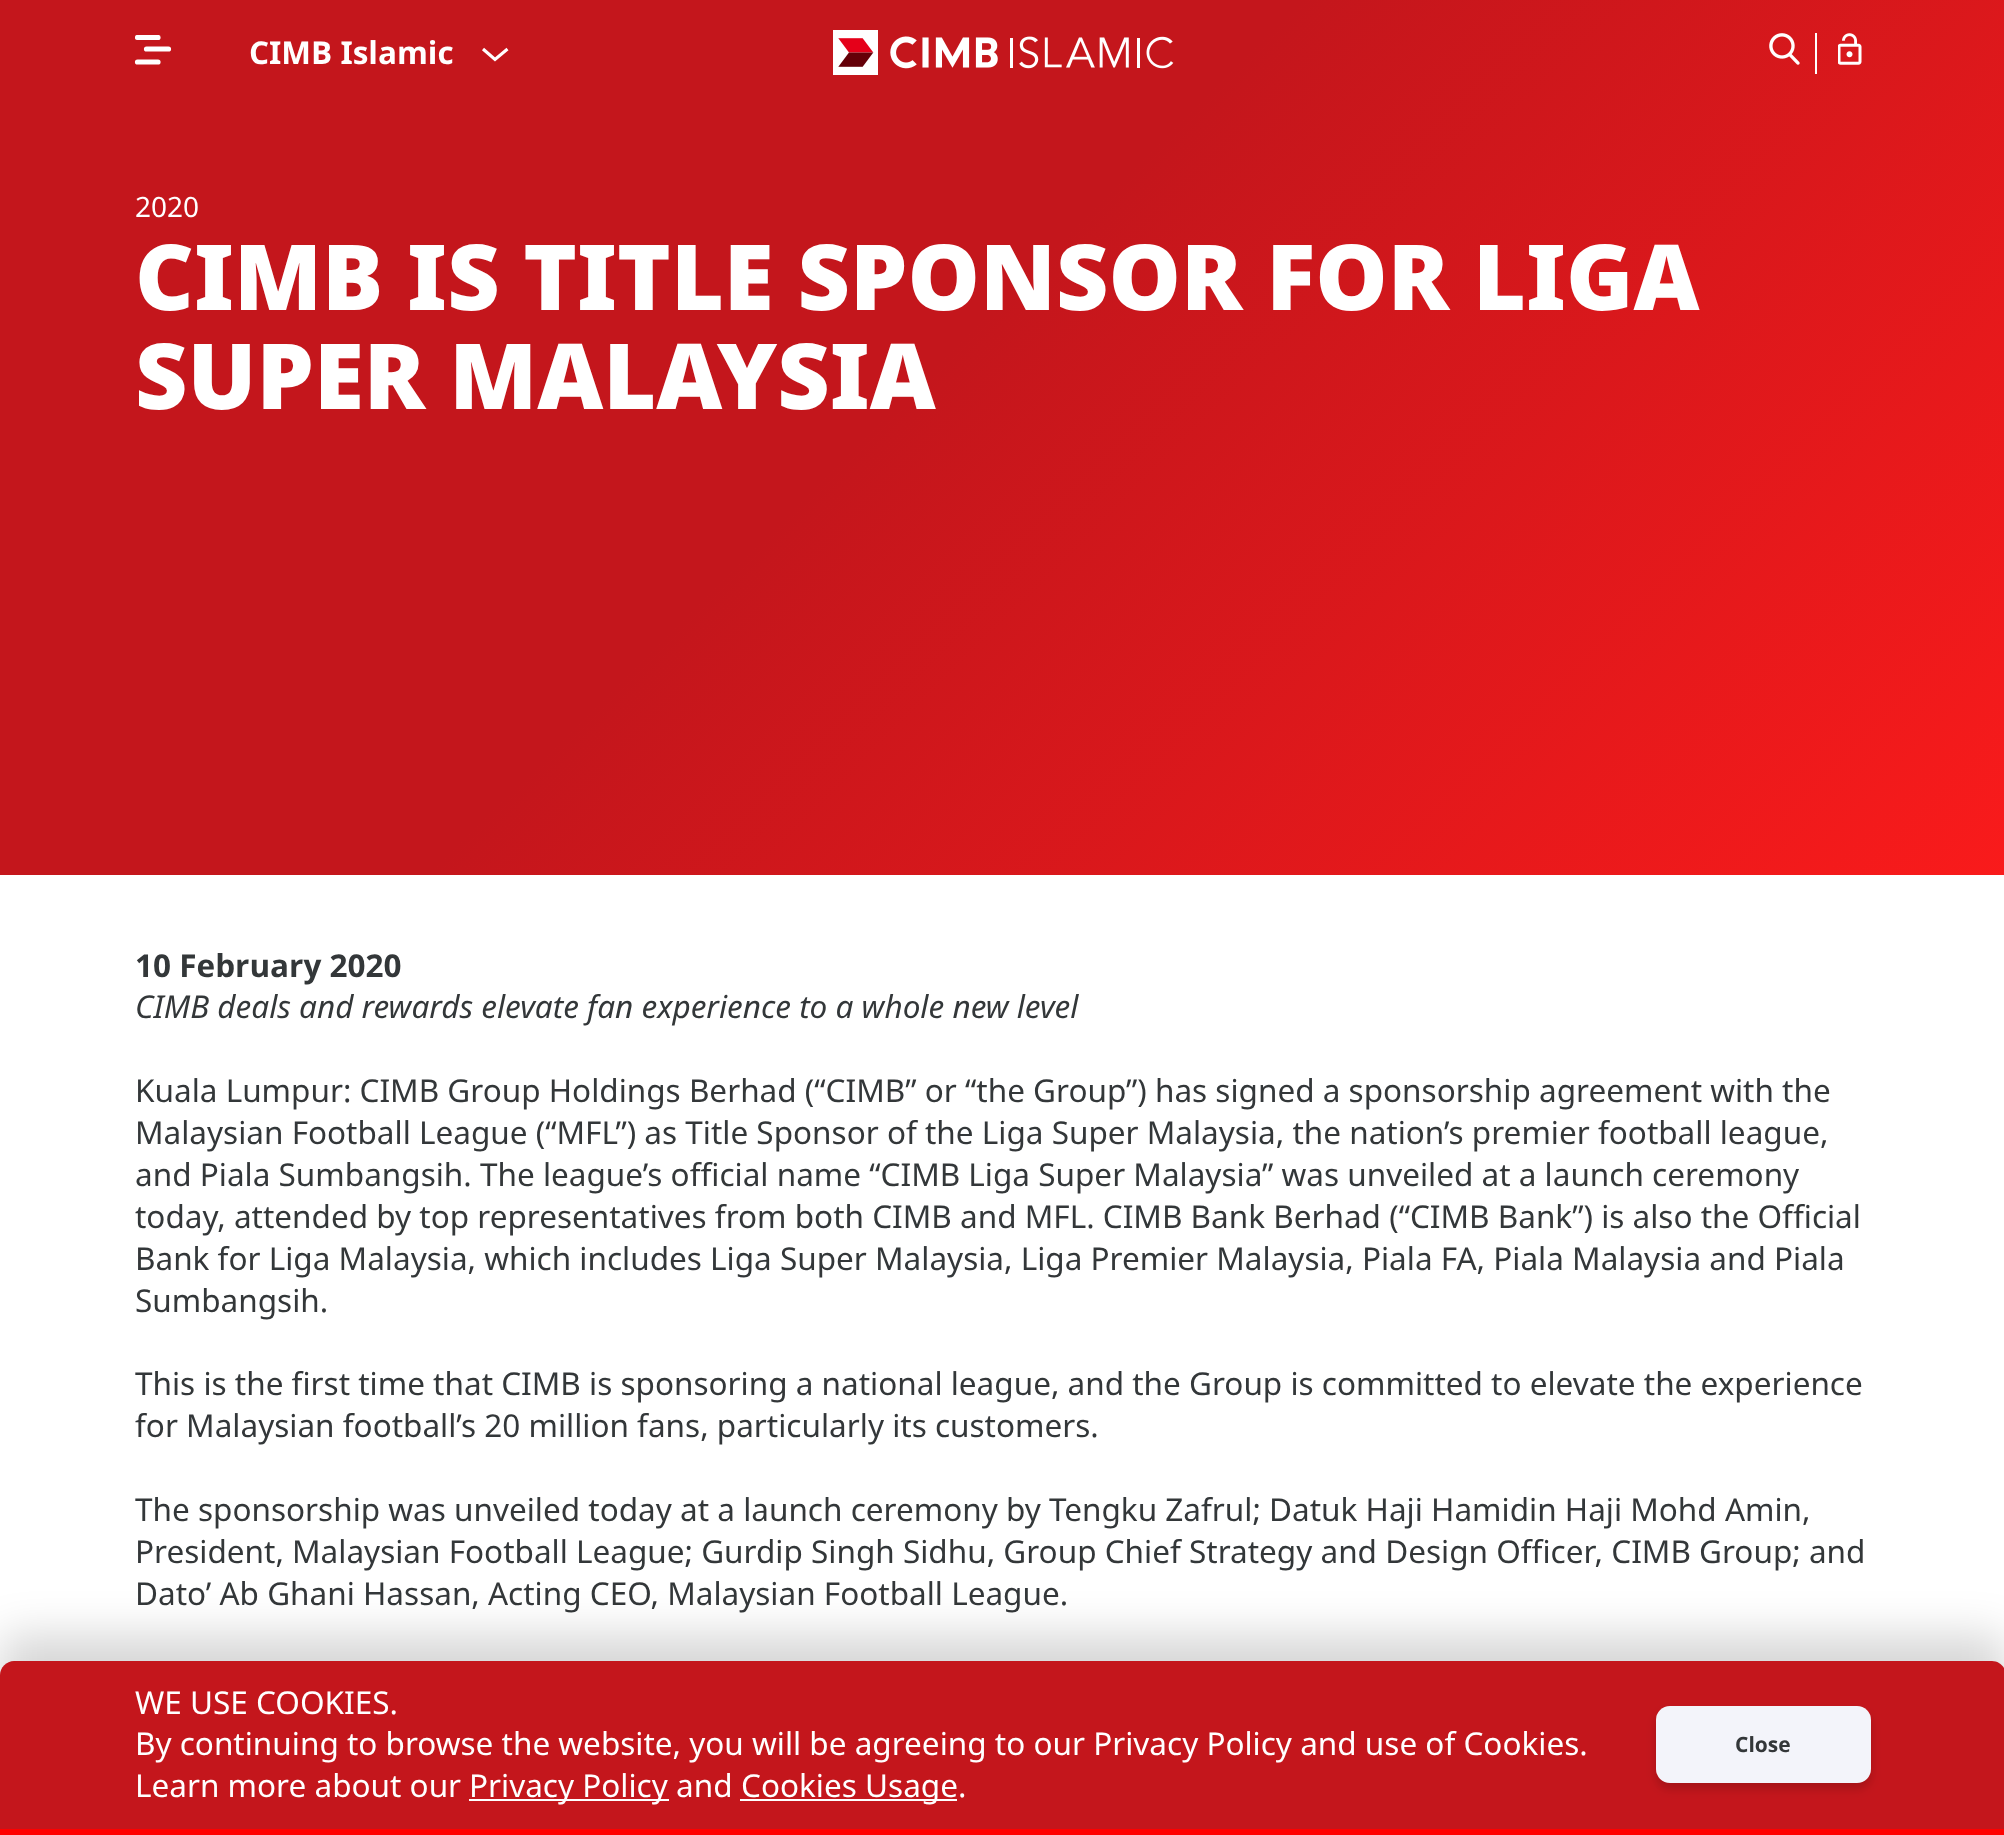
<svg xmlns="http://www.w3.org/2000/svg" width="2004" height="1835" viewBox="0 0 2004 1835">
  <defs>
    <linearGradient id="g1" gradientUnits="userSpaceOnUse" x1="1795" y1="1230" x2="283" y2="-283"><stop offset="0" stop-color="#fe1b1b"/><stop offset="0.57" stop-color="#c4161c"/></linearGradient>
    <clipPath id="clip1"><rect x="135" y="35" width="36" height="30"/></clipPath>
    <filter id="blur1" x="-50%" y="-200%" width="200%" height="500%"><feGaussianBlur stdDeviation="22"/></filter>
    <filter id="blur2" x="-50%" y="-200%" width="200%" height="500%"><feGaussianBlur stdDeviation="5"/></filter>
  </defs>
  <rect width="100%" height="100%" fill="#ffffff"/>
  <rect x="0" y="0" width="2004" height="875" fill="url(#g1)"/>
  <path d="M146.5 49H168.5M158 62H137.5" fill="none" stroke="#ffffff" stroke-width="5.2" stroke-linecap="round"/>
  <g clip-path="url(#clip1)">
    <path d="M158 37.5H137.5" fill="none" stroke="#ffffff" stroke-width="5.2" stroke-linecap="round"/>
  </g>
  <text x="249" y="64" font-family="Noto Sans" font-size="31.5" font-weight="bold" fill="#ffffff">CIMB Islamic</text>
  <path d="M507.5 49L495 59.5L483 49" fill="none" stroke="#ffffff" stroke-width="3.1"/>
  <image x="833" y="30" width="341" height="45" href="img1.png"/>
  <rect x="1815" y="33" width="2" height="41" fill="#ffffff"/>
  <image x="1769" y="33" width="31" height="32" href="img2.png"/>
  <image x="1838" y="33" width="24" height="32" href="img3.png"/>
  <text x="135" y="217" font-family="Noto Sans" font-size="28" fill="#ffffff">2020</text>
  <text x="135" y="310" font-family="Noto Sans" font-size="91" font-weight="900" fill="#ffffff">CIMB IS TITLE SPONSOR FOR LIGA</text>
  <text x="135" y="409" font-family="Noto Sans" font-size="91" font-weight="900" fill="#ffffff">SUPER MALAYSIA</text>
  <text x="135" y="977" font-family="Noto Sans" font-size="31.5" font-weight="bold" fill="#333739">10 February 2020</text>
  <text x="135" y="1018" font-family="Noto Sans" font-size="31.5" font-style="italic" fill="#333739">CIMB deals and rewards elevate fan experience to a whole new level</text>
  <text x="135" y="1102" font-family="Noto Sans" font-size="31.5" fill="#333739">Kuala Lumpur: CIMB Group Holdings Berhad (“CIMB” or “the Group”) has signed a sponsorship agreement with the</text>
  <text x="135" y="1144" font-family="Noto Sans" font-size="31.5" fill="#333739">Malaysian Football League (“MFL”) as Title Sponsor of the Liga Super Malaysia, the nation’s premier football league,</text>
  <text x="135" y="1186" font-family="Noto Sans" font-size="31.5" fill="#333739">and Piala Sumbangsih. The league’s official name “CIMB Liga Super Malaysia” was unveiled at a launch ceremony</text>
  <text x="135" y="1228" font-family="Noto Sans" font-size="31.5" fill="#333739">today, attended by top representatives from both CIMB and MFL. CIMB Bank Berhad (“CIMB Bank”) is also the Official</text>
  <text x="135" y="1270" font-family="Noto Sans" font-size="31.5" fill="#333739">Bank for Liga Malaysia, which includes Liga Super Malaysia, Liga Premier Malaysia, Piala FA, Piala Malaysia and Piala</text>
  <text x="135" y="1312" font-family="Noto Sans" font-size="31.5" fill="#333739">Sumbangsih.</text>
  <text x="135" y="1395" font-family="Noto Sans" font-size="31.5" fill="#333739">This is the first time that CIMB is sponsoring a national league, and the Group is committed to elevate the experience</text>
  <text x="135" y="1437" font-family="Noto Sans" font-size="31.5" fill="#333739">for Malaysian football’s 20 million fans, particularly its customers.</text>
  <text x="135" y="1521" font-family="Noto Sans" font-size="31.5" fill="#333739">The sponsorship was unveiled today at a launch ceremony by Tengku Zafrul; Datuk Haji Hamidin Haji Mohd Amin,</text>
  <text x="135" y="1563" font-family="Noto Sans" font-size="31.5" fill="#333739">President, Malaysian Football League; Gurdip Singh Sidhu, Group Chief Strategy and Design Officer, CIMB Group; and</text>
  <text x="135" y="1605" font-family="Noto Sans" font-size="31.5" fill="#333739">Dato’ Ab Ghani Hassan, Acting CEO, Malaysian Football League.</text>
  <rect x="0" y="1635" width="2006" height="175" rx="14" fill="#000000" fill-opacity="0.16" filter="url(#blur1)"/>
  <path d="M14 1661H1992C1999.5 1661 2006 1667.5 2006 1675V1829H0V1675C0 1667.5 6.5 1661 14 1661Z" fill="#c4161c"/>
  <rect x="0" y="1829" width="2004" height="6" fill="#ff0000"/>
  <text x="135" y="1714" font-family="Noto Sans" font-size="31.5" fill="#ffffff">WE USE COOKIES.</text>
  <text x="135" y="1755" font-family="Noto Sans" font-size="31.5" fill="#ffffff">By continuing to browse the website, you will be agreeing to our Privacy Policy and use of Cookies.</text>
  <text x="135" y="1797" font-family="Noto Sans" font-size="31.5" fill="#ffffff">Learn more about our</text>
  <rect x="469" y="1799" width="200" height="2" fill="#ffffff"/>
  <text x="469" y="1797" font-family="Noto Sans" font-size="31.5" fill="#ffffff">Privacy Policy and</text>
  <rect x="740" y="1799" width="217" height="2" fill="#ffffff"/>
  <text x="741" y="1797" font-family="Noto Sans" font-size="31.5" fill="#ffffff">Cookies Usage.</text>
  <rect x="1656" y="1712" width="215" height="77" rx="14" fill="#000000" fill-opacity="0.16" filter="url(#blur2)"/>
  <rect x="1656" y="1706" width="215" height="77" rx="14" fill="#f3f4fa"/>
  <text x="1735" y="1752" font-family="Noto Sans" font-size="21" font-weight="bold" fill="#333739">Close</text>
</svg>
